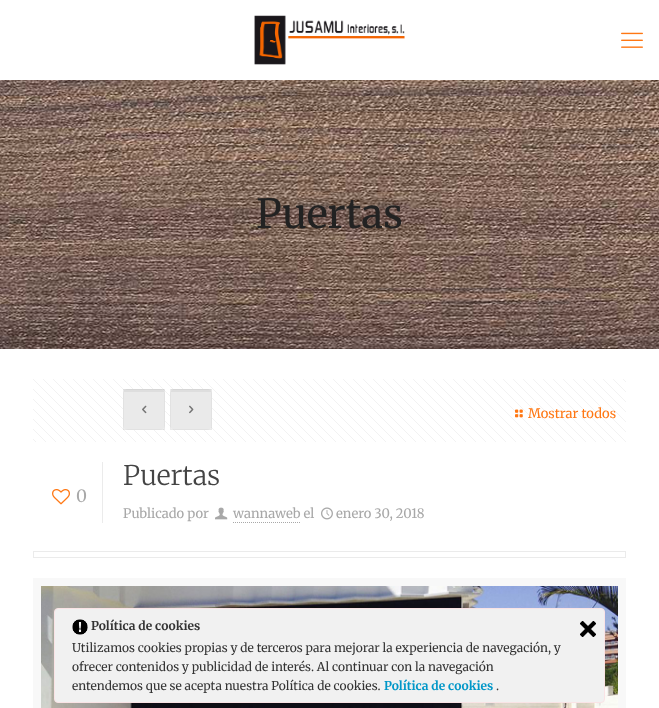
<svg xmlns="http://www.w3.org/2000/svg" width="659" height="708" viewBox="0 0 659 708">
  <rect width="100%" height="100%" fill="#ffffff"/>
  <image x="254" y="15" width="151" height="50" href="img1.png"/>
  <image x="621" y="32" width="22" height="16" href="img2.png"/>
  <image x="0" y="80" width="659" height="269" href="img3.png"/>
  <text x="256" y="228" font-family="Merriweather" font-size="40" fill="#222222">Puertas</text>
  <image x="33" y="379" width="593" height="63" href="img4.png"/>
  <rect x="123" y="389" width="42" height="41" rx="5" fill="#f7f7f7"/>
  <rect x="124" y="389" width="40" height="3" fill="#000000" fill-opacity="0.05"/>
  <rect x="123.5" y="389.5" width="41" height="40" fill="none" stroke="#000000" stroke-opacity="0.03"/>
  <rect x="123" y="389" width="42" height="41" fill="#000000" fill-opacity="0.05"/>
  <image x="142" y="405" width="5" height="9" href="img5.png"/>
  <rect x="170" y="389" width="42" height="41" rx="5" fill="#f7f7f7"/>
  <rect x="171" y="389" width="40" height="3" fill="#000000" fill-opacity="0.05"/>
  <rect x="170.5" y="389.5" width="41" height="40" fill="none" stroke="#000000" stroke-opacity="0.03"/>
  <rect x="170" y="389" width="42" height="41" fill="#000000" fill-opacity="0.05"/>
  <image x="189" y="405" width="5" height="9" href="img6.png"/>
  <image x="515" y="409" width="8" height="9" href="img7.png"/>
  <text x="528" y="418" font-family="Merriweather" font-size="13" fill="#ff7713">Mostrar todos</text>
  <image x="52" y="489" width="18" height="16" href="img8.png"/>
  <text x="76" y="502" font-family="Merriweather" font-size="17" fill="#a8a8a8">0</text>
  <rect x="102" y="462" width="1" height="61" fill="#ebebeb"/>
  <text x="123" y="485" font-family="Merriweather" font-size="27" font-weight="300" fill="#444444">Puertas</text>
  <text x="123" y="518" font-family="Merriweather" font-size="13" fill="#a8a8a8">Publicado por</text>
  <image x="215" y="507" width="13" height="13" href="img9.png"/>
  <text x="233" y="518" font-family="Merriweather" font-size="13" fill="#a8a8a8">wannaweb el</text>
  <path d="M233 522.5H301" fill="none" stroke="#a8a8a8" stroke-dasharray="1 1"/>
  <image x="321" y="507" width="12" height="13" href="img10.png"/>
  <text x="336" y="518" font-family="Merriweather" font-size="13" fill="#a8a8a8">enero 30, 2018</text>
  <rect x="33.5" y="551.5" width="592" height="6" fill="none" stroke="#ebebeb"/>
  <rect x="37" y="582" width="585" height="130" fill="none" stroke="#f8f8f8" stroke-width="8"/>
  <image x="41" y="586" width="577" height="122" href="img11.png"/>
  <rect x="54.5" y="608.5" width="550" height="94" rx="3.5" fill="#f1f1f1" stroke="#fae3e5"/>
  <image x="72" y="619" width="16" height="16" href="img12.png"/>
  <text x="91" y="630" font-family="Merriweather" font-size="12" font-weight="bold" fill="#333333">Política de cookies</text>
  <image x="580" y="621" width="16" height="16" href="img13.png"/>
  <text x="72" y="652" font-family="Merriweather" font-size="12" fill="#333333">Utilizamos cookies propias y de terceros para mejorar la experiencia de navegación, y</text>
  <text x="72" y="671" font-family="Merriweather" font-size="12" fill="#333333">ofrecer contenidos y publicidad de interés. Al continuar con la navegación</text>
  <text x="72" y="690" font-family="Merriweather" font-size="12" fill="#333333">entendemos que se acepta nuestra Política de cookies.</text>
  <text x="384" y="690" font-family="Merriweather" font-size="12" font-weight="bold" fill="#0097c8">Política de cookies</text>
  <text x="496" y="690" font-family="Merriweather" font-size="12" fill="#333333">.</text>
</svg>
